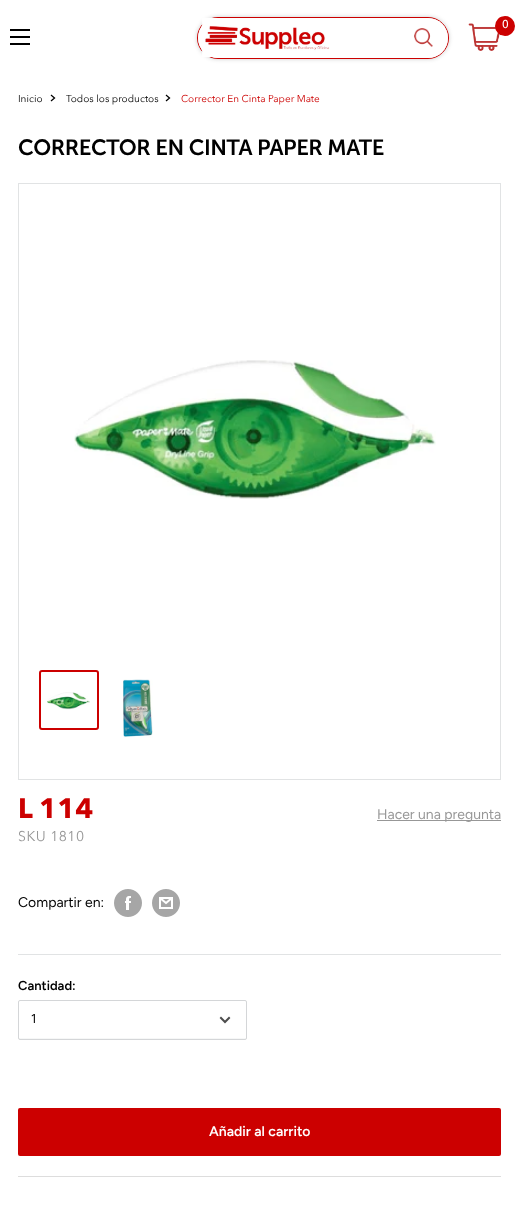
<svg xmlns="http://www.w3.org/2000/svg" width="519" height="1211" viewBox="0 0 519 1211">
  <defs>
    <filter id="blur1" x="-50%" y="-200%" width="200%" height="500%"><feGaussianBlur stdDeviation="2"/></filter>
  </defs>
  <rect width="100%" height="100%" fill="#ffffff"/>
  <rect x="197" y="17" width="252" height="42" rx="21" fill="#000000" fill-opacity="0.2" filter="url(#blur1)"/>
  <rect x="197.5" y="17.5" width="251" height="41" rx="20.5" fill="none" stroke="#cc0000"/>
  <rect x="198" y="18" width="250" height="40" rx="20" fill="#ffffff"/>
  <image x="414" y="28" width="19" height="19" href="img1.png"/>
  <image x="202" y="18" width="128" height="39" href="img2.png"/>
  <image x="468" y="23" width="32" height="28" href="img3.png"/>
  <circle cx="505" cy="26" r="10" fill="#cc0000"/>
  <text x="502" y="28" font-family="'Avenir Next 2'" font-size="11" font-weight="bold" fill="#ffffff">0</text>
  <image x="10" y="29" width="20" height="16" href="img4.png"/>
  <text x="18" y="102" font-family="Avenir Next" font-size="10" fill="#000000">Inicio</text>
  <path d="M51.5 95.5L54.5 98L51.5 100.5" fill="none" stroke="#000000" stroke-width="1.3" stroke-linecap="square"/>
  <text x="66" y="102" font-family="Avenir Next" font-size="10" fill="#000000">Todos los productos</text>
  <path d="M166.5 95.5L169.5 98L166.5 100.5" fill="none" stroke="#000000" stroke-width="1.3" stroke-linecap="square"/>
  <text x="181" y="102" font-family="Avenir Next" font-size="10" fill="#cc0000">Corrector En Cinta Paper Mate</text>
  <text x="18" y="155" font-family="Museo Sans" font-size="22" font-weight="600" letter-spacing="-0.45" fill="#000000">CORRECTOR EN CINTA PAPER MATE</text>
  <rect x="18.5" y="183.5" width="482" height="596" fill="none" stroke="#e1e3e4"/>
  <image x="74" y="360" width="362" height="139" href="img5.png"/>
  <rect x="40" y="671" width="58" height="58" rx="2" fill="none" stroke="#cc0000" stroke-width="2"/>
  <image x="47" y="692" width="43" height="18" href="img6.png"/>
  <image x="123" y="679" width="30" height="59" href="img7.png"/>
  <text x="18" y="818" font-family="Avenir Next" font-size="28" font-weight="bold" fill="#cc0000">L 114</text>
  <rect x="377" y="820" width="124" height="1" fill="#979797"/>
  <text x="377" y="819" font-family="Figtree" font-size="14" fill="#979797">Hacer una pregunta</text>
  <text x="18" y="841" font-family="Avenir Next" font-size="14" letter-spacing="0.5" fill="#979797">SKU 1810</text>
  <text x="18" y="907" font-family="Figtree" font-size="14" fill="#000000">Compartir en:</text>
  <image x="114" y="889" width="28" height="28" href="img8.png"/>
  <image x="152" y="889" width="28" height="28" href="img9.png"/>
  <rect x="18" y="954" width="483" height="1" fill="#e1e3e4"/>
  <rect x="18" y="1176" width="483" height="1" fill="#dddddd"/>
  <text x="18" y="990" font-family="Figtree" font-size="13" font-weight="600" fill="#000000">Cantidad:</text>
  <path d="M19 1037V1039H245C246 1039 246 1038 246 1037C246 1038 246 1038 245 1038H19Z" fill="#f6f7f7"/>
  <rect x="18.5" y="1000.5" width="228" height="39" rx="1.5" fill="none" stroke="#d4d6d8"/>
  <text x="31" y="1023" font-family="Figtree" font-size="13" fill="#000000">1</text>
  <path d="M229 1018L225 1022L221 1018" fill="none" stroke="#4d4d4d" stroke-width="2" stroke-linecap="square"/>
  <rect x="18" y="1108" width="483" height="48" rx="2" fill="#cc0000"/>
  <text x="209" y="1136" font-family="Figtree" font-size="14" font-weight="600" fill="#ffffff">Añadir al carrito</text>
</svg>
